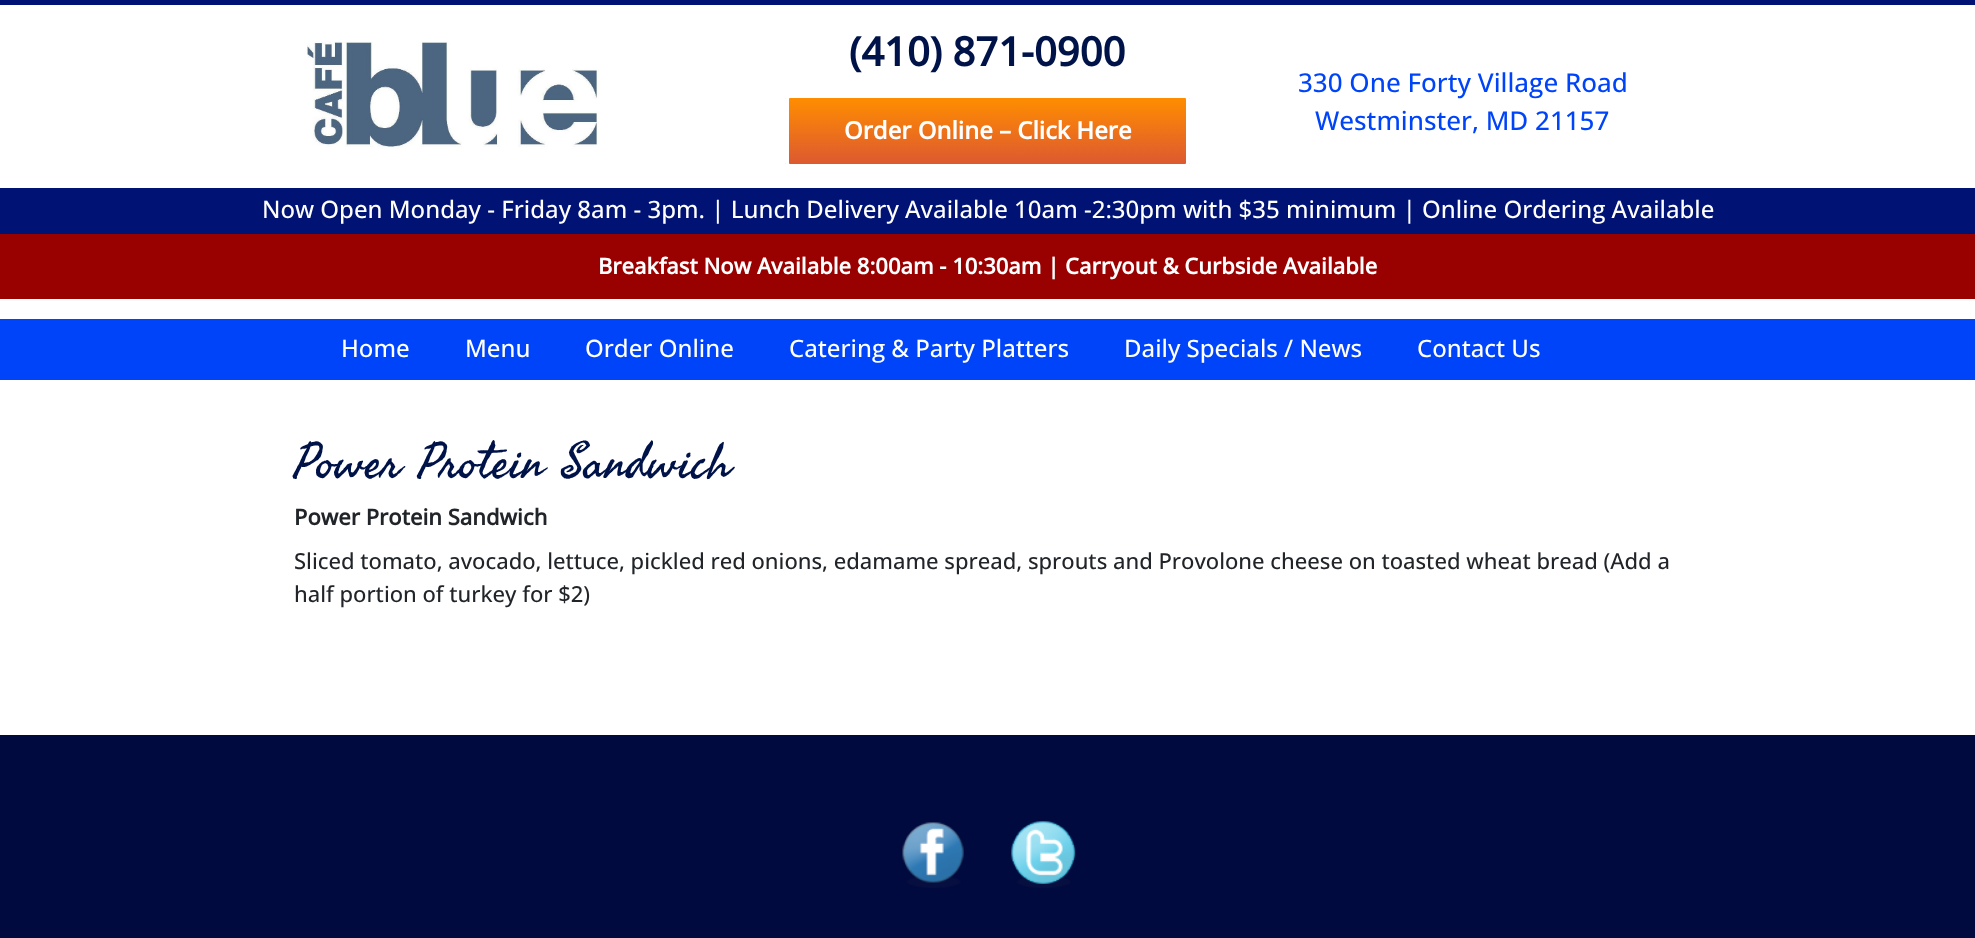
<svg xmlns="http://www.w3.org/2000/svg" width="1975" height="938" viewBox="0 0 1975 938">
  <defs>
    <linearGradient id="g1" gradientUnits="userSpaceOnUse" x1="988" y1="97" x2="988" y2="164"><stop offset="0" stop-color="#ff8e00"/><stop offset="1" stop-color="#dd5930"/></linearGradient>
  </defs>
  <rect width="100%" height="100%" fill="#ffffff"/>
  <rect x="0" y="0" width="1975" height="5" fill="#001375"/>
  <image x="306" y="41" width="293" height="108" href="img1.png"/>
  <text x="849" y="66" font-family="Open Sans" font-size="40" font-weight="bold" fill="#001349">(410) 871-0900</text>
  <rect x="785" y="98" width="405" height="66" fill="url(#g1)"/>
  <rect x="787" y="96" width="401" height="70" rx="3" fill="none" stroke="#ffffff" stroke-width="4"/>
  <text x="844" y="139" font-family="Open Sans" font-size="24" font-weight="bold" fill="#ffffff">Order Online – Click Here</text>
  <text x="1298" y="92" font-family="Open Sans" font-size="26" font-weight="500" fill="#0044f9">330 One Forty Village Road</text>
  <text x="1315" y="130" font-family="Open Sans" font-size="26" font-weight="500" fill="#0044f9">Westminster, MD 21157</text>
  <rect x="0" y="188" width="1975" height="46" fill="#001375"/>
  <text x="262" y="218" font-family="Open Sans" font-size="24" font-weight="500" fill="#ffffff">Now Open Monday - Friday 8am - 3pm. | Lunch Delivery Available 10am -2:30pm with $35 minimum | Online Ordering Available</text>
  <rect x="0" y="234" width="1975" height="65" fill="#990000"/>
  <text x="598" y="274" font-family="Open Sans" font-size="22" font-weight="bold" fill="#ffffff">Breakfast Now Available 8:00am - 10:30am | Carryout &amp; Curbside Available</text>
  <rect x="0" y="319" width="1975" height="61" fill="#0044f9"/>
  <text x="341" y="357" font-family="Open Sans" font-size="24" font-weight="500" fill="#ffffff">Home</text>
  <text x="465" y="357" font-family="Open Sans" font-size="24" font-weight="500" fill="#ffffff">Menu</text>
  <text x="585" y="357" font-family="Open Sans" font-size="24" font-weight="500" fill="#ffffff">Order Online</text>
  <text x="789" y="357" font-family="Open Sans" font-size="24" font-weight="500" fill="#ffffff">Catering &amp; Party Platters</text>
  <text x="1124" y="357" font-family="Open Sans" font-size="24" font-weight="500" fill="#ffffff">Daily Specials / News</text>
  <text x="1417" y="357" font-family="Open Sans" font-size="24" font-weight="500" fill="#ffffff">Contact Us</text>
  <text x="294" y="477" font-family="Taprom" font-size="50" fill="#001349">Power Protein Sandwich</text>
  <text x="294" y="525" font-family="Open Sans" font-size="22" font-weight="bold" fill="#212529">Power Protein Sandwich</text>
  <text x="294" y="569" font-family="Open Sans" font-size="22" font-weight="500" fill="#212529">Sliced tomato, avocado, lettuce, pickled red onions, edamame spread, sprouts and Provolone cheese on toasted wheat bread (Add a</text>
  <text x="294" y="602" font-family="Open Sans" font-size="22" font-weight="500" fill="#212529">half portion of turkey for $2)</text>
  <rect x="0" y="735" width="1975" height="203" fill="#000a3e"/>
  <image x="902" y="822" width="62" height="66" href="img2.png"/>
  <image x="1011" y="821" width="65" height="67" href="img3.png"/>
</svg>
